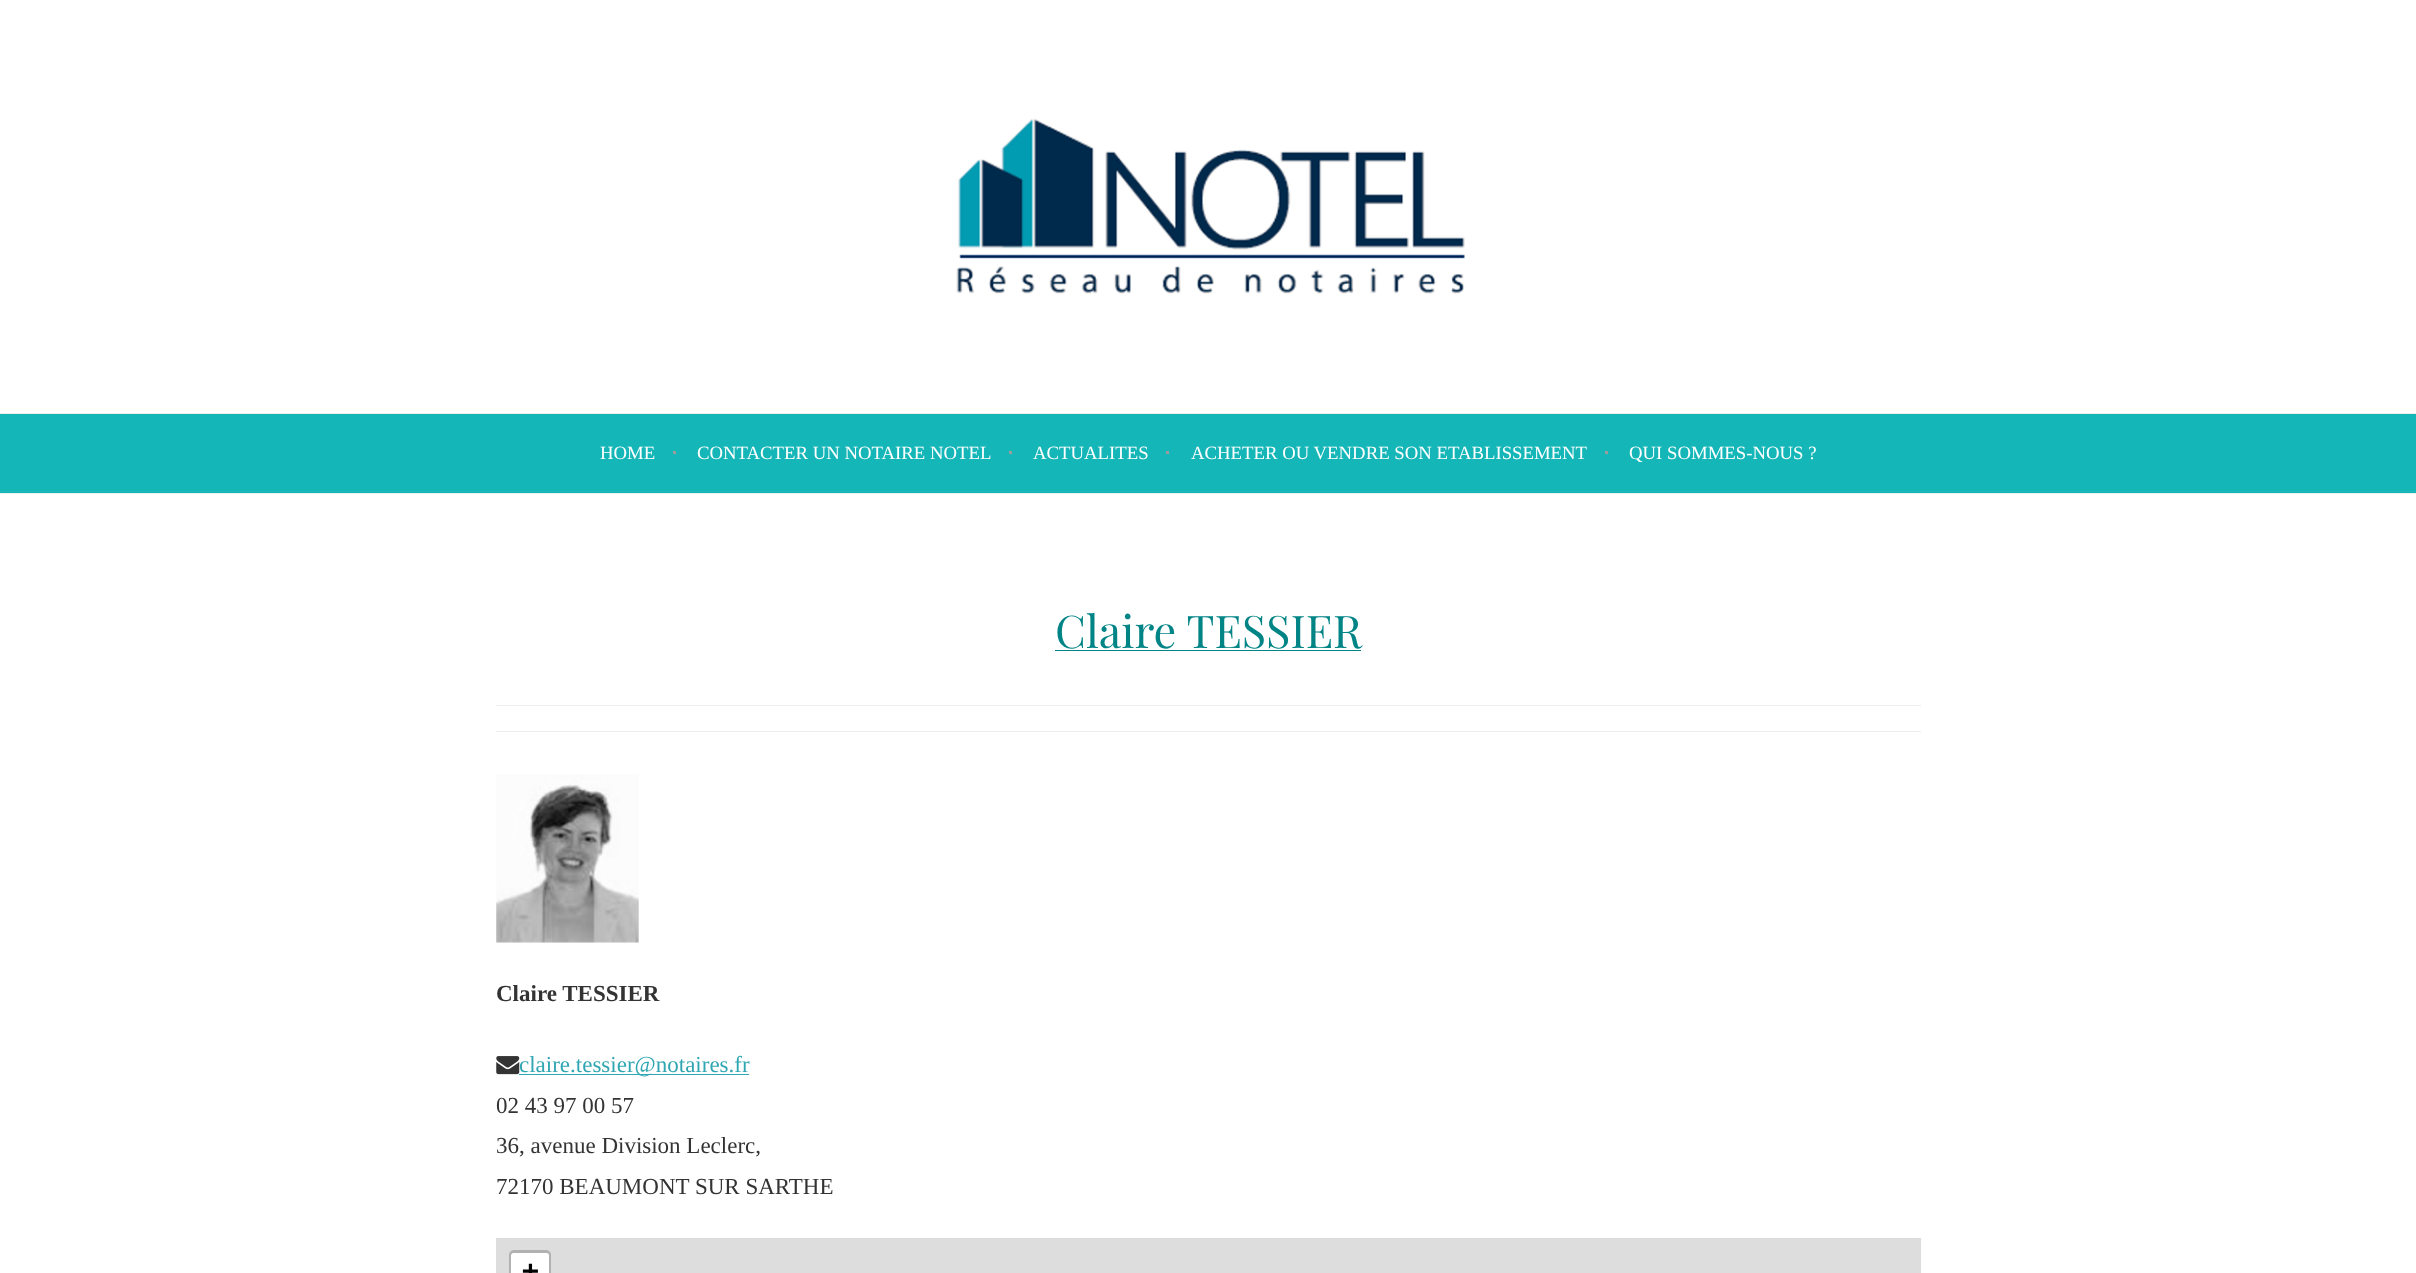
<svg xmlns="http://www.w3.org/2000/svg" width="2416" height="1273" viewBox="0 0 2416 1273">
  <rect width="100%" height="100%" fill="#ffffff"/>
  <image x="956" y="119" width="509" height="175" href="img1.png"/>
  <rect x="0" y="414" width="2416" height="79" fill="#15b6b8"/>
  <rect x="0" y="413" width="2416" height="1" fill="#eeeeee"/>
  <rect x="0" y="493" width="2416" height="1" fill="#eeeeee"/>
  <text x="600" y="459" font-family="Liberation Serif" font-size="18.75" fill="#ffffff">HOME</text>
  <rect x="673" y="451" width="3" height="3" fill="#9c9c9c"/>
  <text x="697" y="459" font-family="Liberation Serif" font-size="18.75" fill="#ffffff">CONTACTER UN NOTAIRE NOTEL</text>
  <rect x="1009" y="451" width="3" height="3" fill="#9c9c9c"/>
  <text x="1033" y="459" font-family="Liberation Serif" font-size="18.75" fill="#ffffff">ACTUALITES</text>
  <rect x="1166" y="451" width="3" height="3" fill="#9c9c9c"/>
  <text x="1191" y="459" font-family="Liberation Serif" font-size="18.75" fill="#ffffff">ACHETER OU VENDRE SON ETABLISSEMENT</text>
  <rect x="1605" y="451" width="3" height="3" fill="#9c9c9c"/>
  <text x="1629" y="459" font-family="Liberation Serif" font-size="18.75" fill="#ffffff">QUI SOMMES-NOUS ?</text>
  <text x="1055" y="648" font-family="Playfair Display" font-size="45" fill="#008486">Claire TESSIER</text>
  <rect x="1055" y="650" width="306" height="1" fill="#008486"/>
  <rect x="496" y="705" width="1425" height="1" fill="#eeeeee"/>
  <rect x="496" y="731" width="1425" height="1" fill="#eeeeee"/>
  <image x="496" y="774" width="143" height="169" href="img2.png"/>
  <text x="496" y="1001" font-family="Liberation Serif" font-size="23" font-weight="bold" fill="#333333">Claire TESSIER</text>
  <image x="496" y="1056" width="24" height="19" href="img3.png"/>
  <rect x="519" y="1074" width="230" height="1" fill="#31a6b3"/>
  <text x="519" y="1072" font-family="Liberation Serif" font-size="23" fill="#31a6b3">claire.tessier@notaires.fr</text>
  <text x="496" y="1113" font-family="Liberation Serif" font-size="23" fill="#333333">02 43 97 00 57</text>
  <text x="496" y="1153" font-family="Liberation Serif" font-size="23" fill="#333333">36, avenue Division Leclerc,</text>
  <text x="496" y="1194" font-family="Liberation Serif" font-size="23" fill="#333333">72170 BEAUMONT SUR SARTHE</text>
  <rect x="496" y="1238" width="1425" height="35" fill="#dddddd"/>
  <rect x="510.5" y="1251.5" width="39" height="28" rx="3.5" fill="none" stroke="#b1b1b1" stroke-width="3"/>
  <path d="M513.5 1253H546.5C548 1253 549 1254 549 1255.5V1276H511V1255.5C511 1254 512 1253 513.5 1253Z" fill="#ffffff"/>
  <text x="522" y="1280" font-family="DejaVu Sans Mono" font-size="28" font-weight="bold" fill="#000000">+</text>
</svg>
